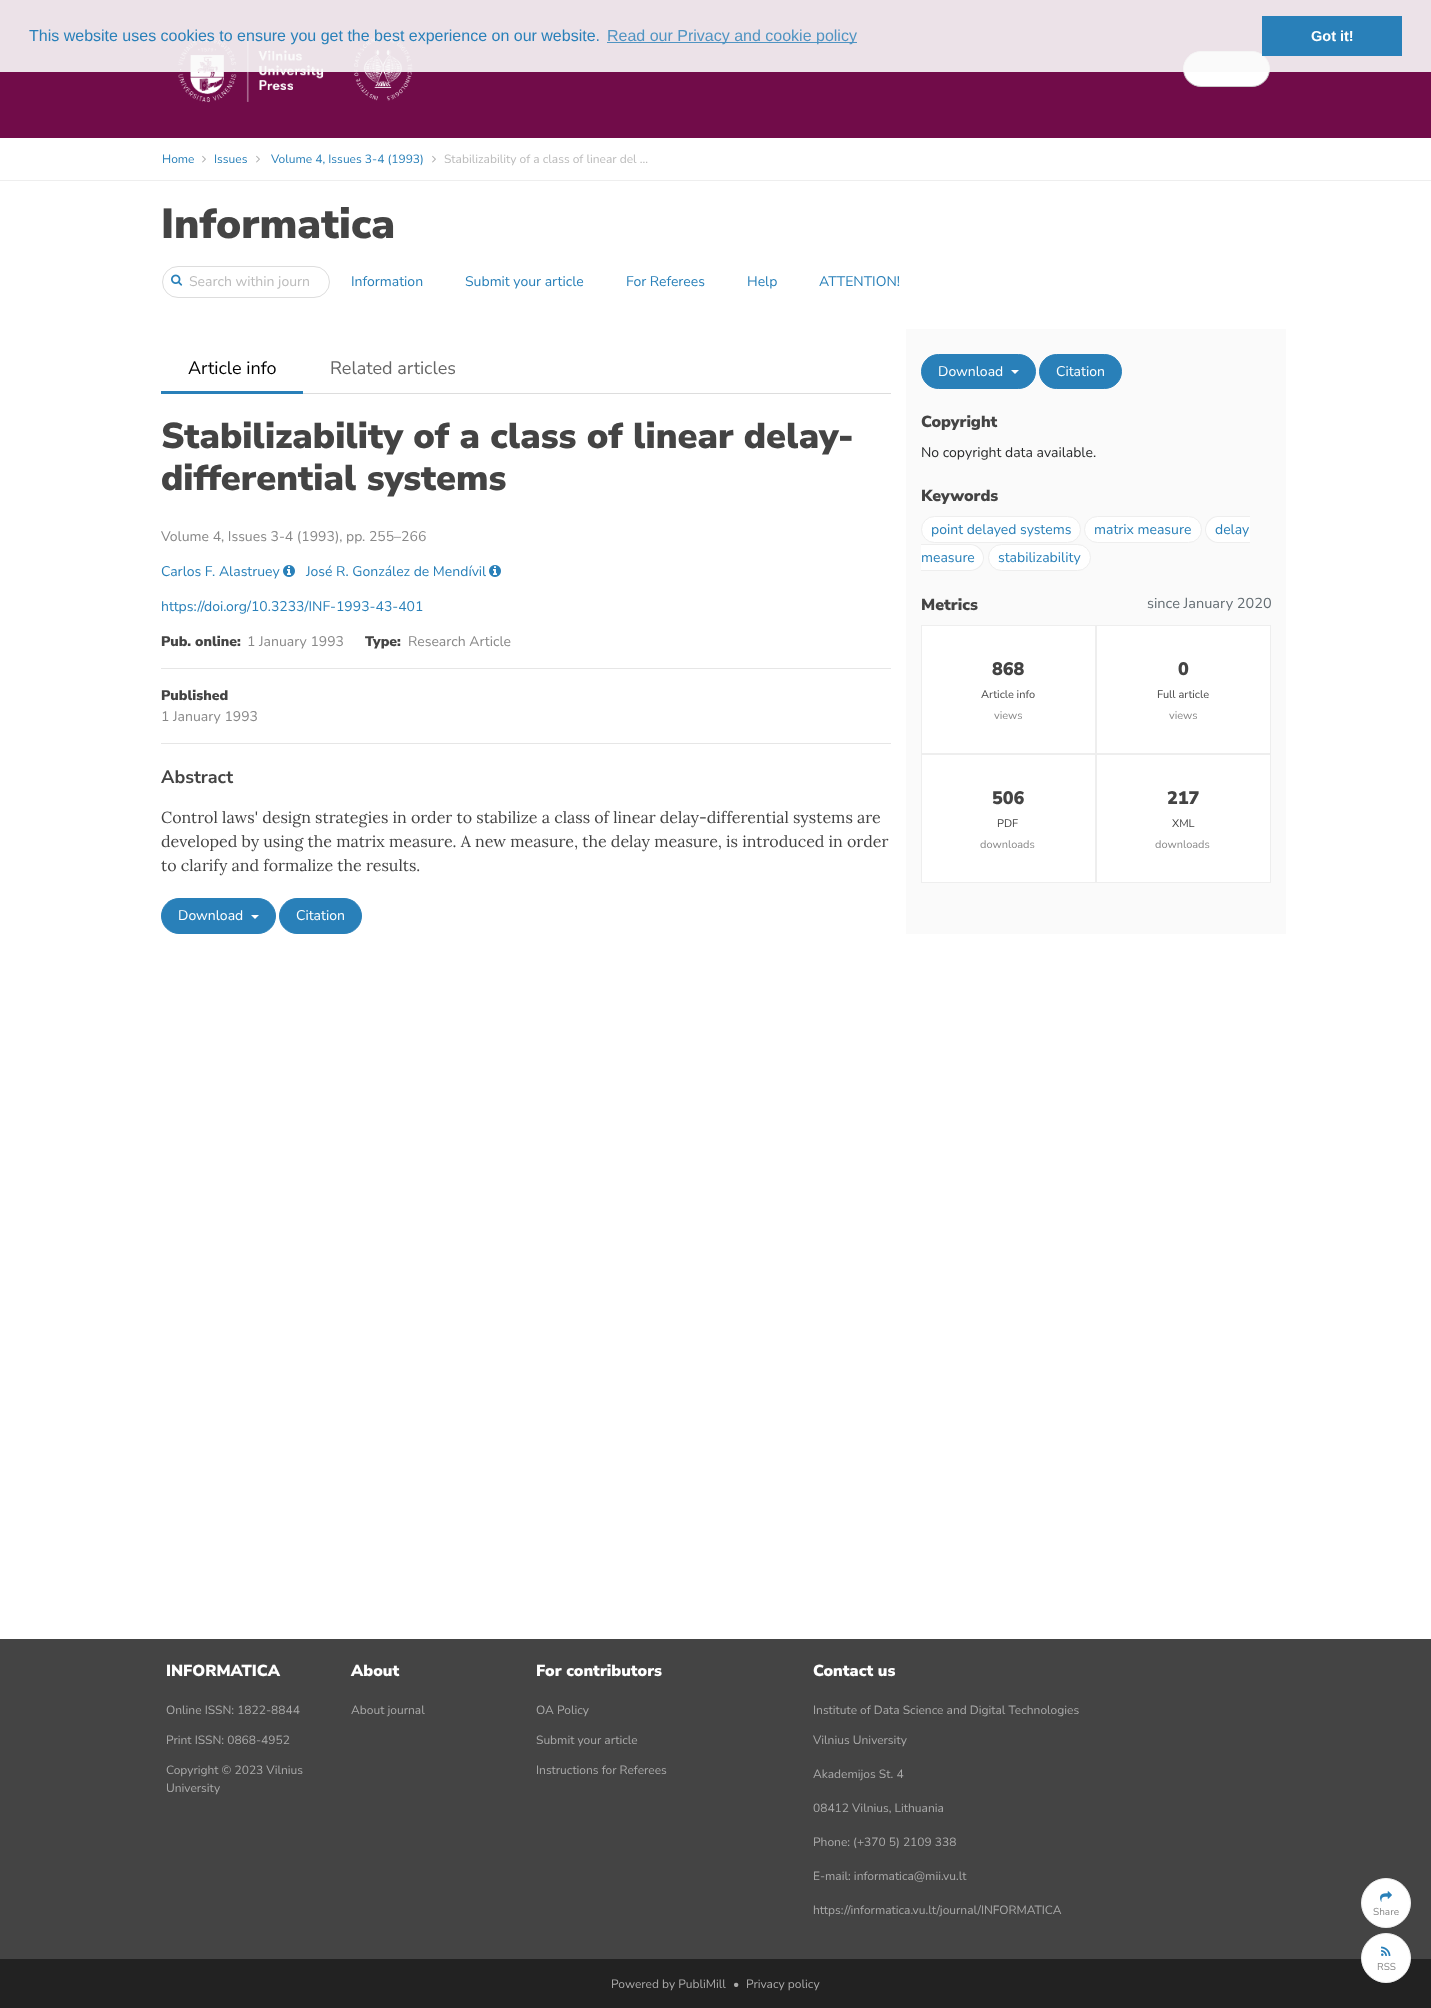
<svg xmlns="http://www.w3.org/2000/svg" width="1431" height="2008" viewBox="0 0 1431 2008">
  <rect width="100%" height="100%" fill="#ffffff"/>
  <rect x="0" y="0" width="1431" height="138" fill="#710c49"/>
  <image x="177" y="36" width="236" height="67" href="img1.png"/>
  <rect x="1183.5" y="51.5" width="86" height="35" rx="17.5" fill="#ffffff" stroke="#cccccc"/>
  <rect x="0" y="0" width="1431" height="72" fill="#fafafa" fill-opacity="0.9"/>
  <text x="29" y="41" font-family="Liberation Sans" font-size="16" fill="#2980b9">This website uses cookies to ensure you get the best experience on our website.</text>
  <rect x="607" y="42" width="250" height="1" fill="#5094c2"/>
  <text x="607" y="41" font-family="Liberation Sans" font-size="16" fill="#5094c2">Read our Privacy and cookie policy</text>
  <rect x="1262" y="16" width="140" height="40" fill="#2980b9"/>
  <text x="1311" y="41" font-family="Liberation Sans" font-size="14.5" font-weight="bold" fill="#ffffff">Got it!</text>
  <rect x="0" y="180" width="1431" height="1" fill="#eeeeee"/>
  <text x="162" y="163" font-family="Nunito Sans" font-size="12" fill="#2980b9">Home</text>
  <image x="202" y="155" width="4" height="8" href="img2.png"/>
  <text x="214" y="163" font-family="Nunito Sans" font-size="12" fill="#2980b9">Issues</text>
  <image x="256" y="155" width="4" height="8" href="img2.png"/>
  <text x="271" y="163" font-family="Nunito Sans" font-size="12" fill="#2980b9">Volume 4, Issues 3-4 (1993)</text>
  <image x="432" y="155" width="4" height="8" href="img2.png"/>
  <text x="444" y="163" font-family="Nunito Sans" font-size="12" fill="#bbbbbb">Stabilizability of a class of linear del ...</text>
  <text x="161" y="238" font-family="Nunito Sans" font-size="42" font-weight="900" fill="#444444">Informatica</text>
  <rect x="162.5" y="266.5" width="167" height="31" rx="15.5" fill="none" stroke="#dddddd"/>
  <image x="171" y="274" width="12" height="12" href="img3.png"/>
  <text x="189" y="286" font-family="Nunito Sans" font-size="14" fill="#bbbbbb">Search within journ</text>
  <text x="351" y="286" font-family="Nunito Sans" font-size="14" fill="#2980b9">Information</text>
  <text x="465" y="286" font-family="Nunito Sans" font-size="14" fill="#2980b9">Submit your article</text>
  <text x="626" y="286" font-family="Nunito Sans" font-size="14" fill="#2980b9">For Referees</text>
  <text x="747" y="286" font-family="Nunito Sans" font-size="14" fill="#2980b9">Help</text>
  <text x="819" y="286" font-family="Nunito Sans" font-size="14" fill="#2980b9">ATTENTION!</text>
  <rect x="303" y="393" width="588" height="1" fill="#dddddd"/>
  <rect x="161" y="391" width="142" height="3" fill="#2980b9"/>
  <text x="188" y="374" font-family="Nunito Sans" font-size="18" fill="#000000">Article info</text>
  <text x="330" y="374" font-family="Nunito Sans" font-size="18" fill="#666666">Related articles</text>
  <text x="161" y="448" font-family="Nunito Sans" font-size="36" font-weight="900" fill="#444444">Stabilizability of a class of linear delay-</text>
  <text x="161" y="490" font-family="Nunito Sans" font-size="36" font-weight="900" fill="#444444">differential systems</text>
  <text x="161" y="541" font-family="Nunito Sans" font-size="14" fill="#888888">Volume 4, Issues 3-4 (1993), pp. 255–266</text>
  <text x="161" y="576" font-family="Nunito Sans" font-size="14" fill="#2980b9">Carlos F. Alastruey</text>
  <image x="283" y="565" width="12" height="12" href="img4.png"/>
  <text x="306" y="576" font-family="Nunito Sans" font-size="14" fill="#2980b9">José R. González de Mendívil</text>
  <image x="489" y="565" width="12" height="12" href="img4.png"/>
  <text x="161" y="611" font-family="Nunito Sans" font-size="14" fill="#2980b9">https://doi.org/10.3233/INF-1993-43-401</text>
  <text x="161" y="646" font-family="Nunito Sans" font-size="14" font-weight="900" fill="#444444">Pub. online:</text>
  <text x="247" y="646" font-family="Nunito Sans" font-size="14" fill="#888888">1 January 1993</text>
  <text x="365" y="646" font-family="Nunito Sans" font-size="14" font-weight="900" fill="#444444">Type:</text>
  <text x="408" y="646" font-family="Nunito Sans" font-size="14" fill="#888888">Research Article</text>
  <rect x="161" y="668" width="730" height="1" fill="#e6e6e6"/>
  <text x="161" y="700" font-family="Nunito Sans" font-size="14" font-weight="900" fill="#444444">Published</text>
  <text x="161" y="721" font-family="Nunito Sans" font-size="14" fill="#888888">1 January 1993</text>
  <rect x="161" y="743" width="730" height="1" fill="#e6e6e6"/>
  <text x="161" y="783" font-family="Nunito Sans" font-size="18" font-weight="bold" fill="#444444">Abstract</text>
  <text x="161" y="823" font-family="Lora" font-size="16" fill="#444444">Control laws' design strategies in order to stabilize a class of linear delay-differential systems are</text>
  <text x="161" y="847" font-family="Lora" font-size="16" fill="#444444">developed by using the matrix measure. A new measure, the delay measure, is introduced in order</text>
  <text x="161" y="871" font-family="Lora" font-size="16" fill="#444444">to clarify and formalize the results.</text>
  <rect x="161.5" y="898.5" width="114" height="35" rx="17.5" fill="#2980b9" stroke="#2980b9"/>
  <text x="178" y="920" font-family="Nunito Sans" font-size="14" fill="#ffffff">Download</text>
  <path d="M251 915H259L255 919Z" fill="#ffffff"/>
  <rect x="279.5" y="898.5" width="82" height="35" rx="17.5" fill="#2980b9" stroke="#2980b9"/>
  <text x="296" y="920" font-family="Nunito Sans" font-size="14" fill="#ffffff">Citation</text>
  <rect x="906" y="329" width="380" height="605" fill="#fafafa"/>
  <rect x="921.5" y="354.5" width="114" height="34" rx="17" fill="#2980b9" stroke="#2980b9"/>
  <text x="938" y="376" font-family="Nunito Sans" font-size="14" fill="#ffffff">Download</text>
  <path d="M1011 370H1019L1015 374Z" fill="#ffffff"/>
  <rect x="1039.5" y="354.5" width="82" height="34" rx="17" fill="#2980b9" stroke="#2980b9"/>
  <text x="1056" y="376" font-family="Nunito Sans" font-size="14" fill="#ffffff">Citation</text>
  <text x="921" y="427" font-family="Nunito Sans" font-size="16" font-weight="900" fill="#444444">Copyright</text>
  <text x="921" y="457" font-family="Nunito Sans" font-size="14" fill="#292b2c">No copyright data available.</text>
  <text x="921" y="501" font-family="Nunito Sans" font-size="16" font-weight="900" fill="#444444">Keywords</text>
  <rect x="921.5" y="516.5" width="159" height="26" rx="13" fill="#ffffff" stroke="#eeeeee"/>
  <text x="931" y="534" font-family="Nunito Sans" font-size="14" fill="#2980b9">point delayed systems</text>
  <rect x="1084.5" y="516.5" width="117" height="26" rx="13" fill="#ffffff" stroke="#eeeeee"/>
  <text x="1094" y="534" font-family="Nunito Sans" font-size="14" fill="#2980b9">matrix measure</text>
  <path d="M1218.5 516H1250V543H1218.5C1211 543 1205 537 1205 529.5C1205 522 1211 516 1218.5 516Z" fill="#ffffff"/>
  <path d="M1218 516H1250V543H1218C1211 543 1205 537 1205 530C1205 522 1211 516 1218 516ZM1218 517H1250V542H1218C1212 542 1206 536 1206 530C1206 523 1212 517 1218 517Z" fill="#eeeeee" fill-rule="evenodd"/>
  <text x="1215" y="534" font-family="Nunito Sans" font-size="14" fill="#2980b9">delay</text>
  <path d="M921 544H970.5C978 544 984 550 984 557.5C984 565 978 571 970.5 571H921Z" fill="#ffffff"/>
  <path d="M921 544H970C978 544 984 550 984 558C984 565 978 571 970 571H921ZM921 545H970C977 545 983 551 983 558C983 564 977 570 970 570H921Z" fill="#eeeeee" fill-rule="evenodd"/>
  <text x="921" y="562" font-family="Nunito Sans" font-size="14" fill="#2980b9">measure</text>
  <rect x="988.5" y="544.5" width="102" height="26" rx="13" fill="#ffffff" stroke="#eeeeee"/>
  <text x="998" y="562" font-family="Nunito Sans" font-size="14" fill="#2980b9">stabilizability</text>
  <text x="921" y="610" font-family="Nunito Sans" font-size="16" font-weight="900" fill="#444444">Metrics</text>
  <text x="1147" y="608" font-family="Nunito Sans" font-size="14.5" fill="#636c72">since January 2020</text>
  <rect x="921.5" y="625.5" width="174" height="128" fill="#ffffff" stroke="#eeeeee"/>
  <text x="992" y="675" font-family="Nunito Sans" font-size="18" font-weight="900" fill="#444444">868</text>
  <text x="981" y="698" font-family="Nunito Sans" font-size="11" fill="#444444">Article info</text>
  <text x="994" y="719" font-family="Nunito Sans" font-size="11" fill="#888888">views</text>
  <rect x="1096.5" y="625.5" width="174" height="128" fill="#ffffff" stroke="#eeeeee"/>
  <text x="1178" y="675" font-family="Nunito Sans" font-size="18" font-weight="900" fill="#444444">0</text>
  <text x="1157" y="698" font-family="Nunito Sans" font-size="11" fill="#444444">Full article</text>
  <text x="1169" y="719" font-family="Nunito Sans" font-size="11" fill="#888888">views</text>
  <rect x="921.5" y="754.5" width="174" height="128" fill="#ffffff" stroke="#eeeeee"/>
  <text x="992" y="804" font-family="Nunito Sans" font-size="18" font-weight="900" fill="#444444">506</text>
  <text x="997" y="827" font-family="Nunito Sans" font-size="11" fill="#444444">PDF</text>
  <text x="980" y="848" font-family="Nunito Sans" font-size="11" fill="#888888">downloads</text>
  <rect x="1096.5" y="754.5" width="174" height="128" fill="#ffffff" stroke="#eeeeee"/>
  <text x="1167" y="804" font-family="Nunito Sans" font-size="18" font-weight="900" fill="#444444">217</text>
  <text x="1172" y="827" font-family="Nunito Sans" font-size="11" fill="#444444">XML</text>
  <text x="1155" y="848" font-family="Nunito Sans" font-size="11" fill="#888888">downloads</text>
  <rect x="0" y="1639" width="1431" height="320" fill="#444444"/>
  <circle cx="1386" cy="1903" r="24.5" fill="#ffffff" stroke="#eeeeee"/>
  <image x="1380" y="1891" width="12" height="11" href="img5.png"/>
  <text x="1373" y="1915" font-family="Nunito Sans" font-size="10" fill="#888888">Share</text>
  <rect x="0" y="1959" width="1431" height="49" fill="#222222"/>
  <circle cx="1386" cy="1958" r="24.5" fill="#ffffff" stroke="#eeeeee"/>
  <image x="1381" y="1946" width="10" height="10" href="img6.png"/>
  <text x="1377" y="1970" font-family="Nunito Sans" font-size="10" fill="#888888">RSS</text>
  <text x="166" y="1676" font-family="Nunito Sans" font-size="16" font-weight="900" fill="#ffffff">INFORMATICA</text>
  <text x="166" y="1714" font-family="Nunito Sans" font-size="12" fill="#aaaaaa">Online ISSN: 1822-8844</text>
  <text x="166" y="1744" font-family="Nunito Sans" font-size="12" fill="#aaaaaa">Print ISSN: 0868-4952</text>
  <text x="166" y="1774" font-family="Nunito Sans" font-size="12" fill="#aaaaaa">Copyright © 2023 Vilnius</text>
  <text x="166" y="1792" font-family="Nunito Sans" font-size="12" fill="#aaaaaa">University</text>
  <text x="351" y="1676" font-family="Nunito Sans" font-size="16" font-weight="900" fill="#ffffff">About</text>
  <text x="351" y="1714" font-family="Nunito Sans" font-size="12" fill="#aaaaaa">About journal</text>
  <text x="536" y="1676" font-family="Nunito Sans" font-size="16" font-weight="900" fill="#ffffff">For contributors</text>
  <text x="536" y="1714" font-family="Nunito Sans" font-size="12" fill="#aaaaaa">OA Policy</text>
  <text x="536" y="1744" font-family="Nunito Sans" font-size="12" fill="#aaaaaa">Submit your article</text>
  <text x="536" y="1774" font-family="Nunito Sans" font-size="12" fill="#aaaaaa">Instructions for Referees</text>
  <text x="813" y="1676" font-family="Nunito Sans" font-size="16" font-weight="900" fill="#ffffff">Contact us</text>
  <text x="813" y="1714" font-family="Nunito Sans" font-size="12" fill="#aaaaaa">Institute of Data Science and Digital Technologies</text>
  <text x="813" y="1744" font-family="Nunito Sans" font-size="12" fill="#aaaaaa">Vilnius University</text>
  <text x="813" y="1778" font-family="Nunito Sans" font-size="12" fill="#aaaaaa">Akademijos St. 4</text>
  <text x="813" y="1812" font-family="Nunito Sans" font-size="12" fill="#aaaaaa">08412 Vilnius, Lithuania</text>
  <text x="813" y="1846" font-family="Nunito Sans" font-size="12" fill="#aaaaaa">Phone: (+370 5) 2109 338</text>
  <text x="813" y="1880" font-family="Nunito Sans" font-size="12" fill="#aaaaaa">E-mail: informatica@mii.vu.lt</text>
  <text x="813" y="1914" font-family="Nunito Sans" font-size="12" fill="#aaaaaa">https://informatica.vu.lt/journal/INFORMATICA</text>
  <text x="611" y="1988" font-family="Nunito Sans" font-size="12" fill="#aaaaaa">Powered by PubliMill</text>
  <text x="733" y="1988" font-family="Nunito Sans" font-size="12" fill="#aaaaaa">•</text>
  <text x="746" y="1988" font-family="Nunito Sans" font-size="12" fill="#aaaaaa">Privacy policy</text>
</svg>
